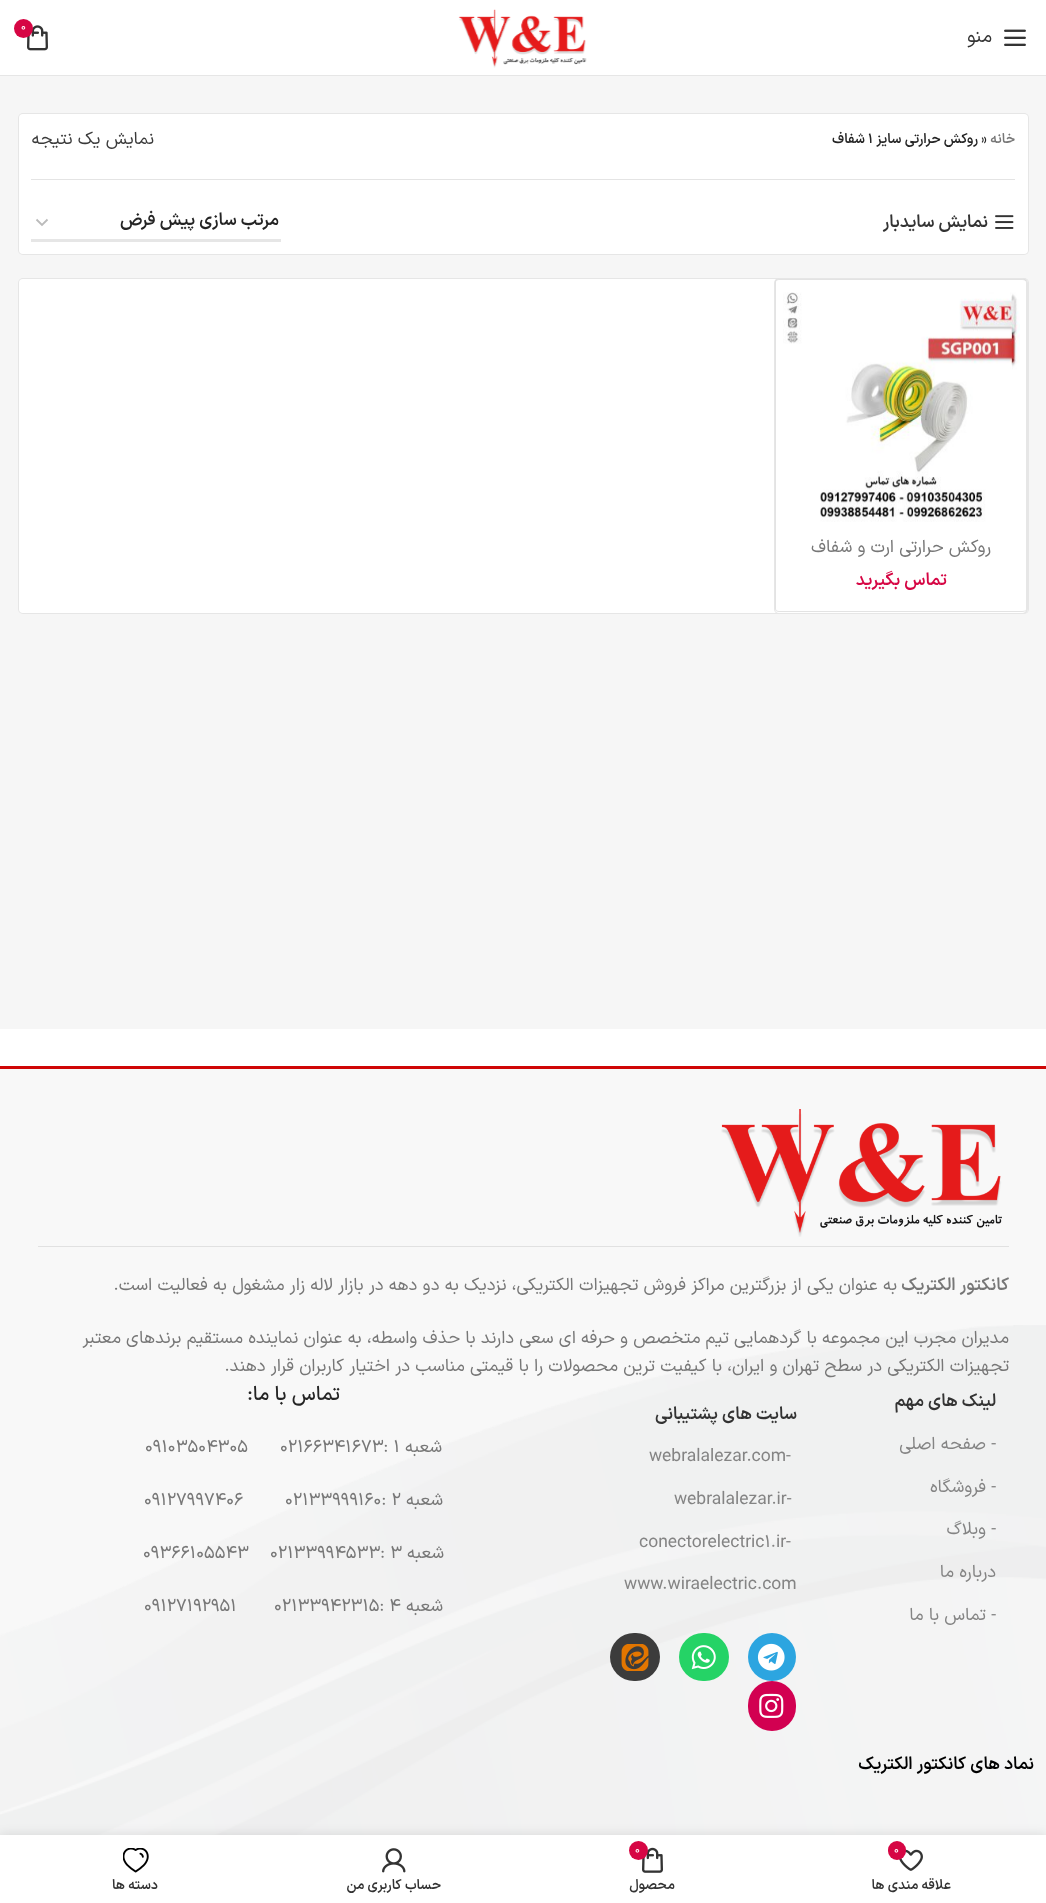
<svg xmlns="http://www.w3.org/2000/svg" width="1046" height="1903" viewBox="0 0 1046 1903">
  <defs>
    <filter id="blur1" x="-50%" y="-200%" width="200%" height="500%"><feGaussianBlur stdDeviation="0.5"/></filter>
    <filter id="blur2" x="-50%" y="-200%" width="200%" height="500%"><feGaussianBlur stdDeviation="5.5"/></filter>
  </defs>
  <rect width="100%" height="100%" fill="#ffffff"/>
  <rect x="0" y="75" width="1046" height="1" fill="#e6e6e6"/>
  <image x="458" y="9" width="129" height="59" href="img1.png"/>
  <image x="27" y="25" width="21" height="26" href="img2.png"/>
  <circle cx="23.5" cy="28.5" r="9.5" fill="#d60644"/>
  <text x="21" y="30" font-family="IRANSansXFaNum" font-size="11" fill="#ffffff">0</text>
  <image x="1004" y="29" width="22" height="17" href="img3.png"/>
  <text x="992" y="42" font-family="IRANSansXFaNum" font-size="19" direction="rtl" fill="#333333">منو</text>
  <rect x="0" y="76" width="1046" height="953" fill="#f6f6f6"/>
  <rect x="18" y="113" width="1011" height="142" rx="5" fill="#e6e6e6" filter="url(#blur1)"/>
  <rect x="19" y="114" width="1009" height="140" rx="4" fill="#ffffff"/>
  <rect x="31" y="179" width="984" height="1" fill="#e4e4e4"/>
  <text x="1015" y="143" font-family="IRANSansXFaNum" font-size="13.75" font-weight="600" direction="rtl" fill="#777777">خانه</text>
  <text x="981" y="143" font-family="IRANSansXFaNum" font-size="13.75" font-weight="600" fill="#242424">»</text>
  <text x="978" y="143" font-family="IRANSansXFaNum" font-size="13.75" font-weight="600" direction="rtl" fill="#242424">روکش حرارتی سایز</text>
  <text x="868" y="143" font-family="IRANSansXFaNum" font-size="13.75" font-weight="600" fill="#242424">1</text>
  <text x="865" y="143" font-family="IRANSansXFaNum" font-size="13.75" font-weight="600" direction="rtl" fill="#242424">شفاف</text>
  <text x="154" y="144" font-family="IRANSansXFaNum" font-size="17.5" direction="rtl" fill="#3a3a3a">نمایش یک نتیجه</text>
  <image x="995" y="215" width="19" height="14" href="img4.png"/>
  <text x="988" y="227" font-family="IRANSansXFaNum" font-size="17.5" font-weight="600" direction="rtl" fill="#333333">نمایش سایدبار</text>
  <path d="M36.5 219.5L42 225L47.5 219.5" fill="none" stroke="#bbbbbb" stroke-width="1.8"/>
  <rect x="31" y="239" width="250" height="3" fill="#e6e6e6"/>
  <text x="279" y="225" font-family="IRANSansXFaNum" font-size="17.5" font-weight="600" direction="rtl" fill="#242424">مرتب سازی پیش فرض</text>
  <rect x="18" y="278" width="1011" height="336" rx="5" fill="#e6e6e6" filter="url(#blur1)"/>
  <rect x="19" y="279" width="1009" height="334" rx="4" fill="#ffffff"/>
  <rect x="774" y="278" width="254" height="336" rx="5" fill="#e6e6e6" filter="url(#blur1)"/>
  <rect x="775" y="279" width="251" height="334" rx="4" fill="#ffffff"/>
  <path d="M779 279H1022C1025 279 1026 280 1026 282V609C1026 611 1025 612 1022 612H779C777 612 775 611 775 609V282C775 280 777 279 779 279ZM779 280H1022C1025 280 1026 281 1026 282V609C1026 610 1025 611 1022 611H779C777 611 776 610 776 609V282C776 281 777 280 779 280Z" fill="#000000" fill-opacity="0.11" fill-rule="evenodd"/>
  <image x="783" y="292" width="237" height="230" href="img5.png"/>
  <text x="991" y="552" font-family="IRANSansXFaNum" font-size="17.5" direction="rtl" fill="#777777">روکش حرارتی ارت و شفاف</text>
  <text x="947" y="585" font-family="IRANSansXFaNum" font-size="17.5" font-weight="600" direction="rtl" fill="#d60644">تماس بگیرید</text>
  <rect x="0" y="1066" width="1046" height="3" fill="#cf0606"/>
  <rect x="0" y="1069" width="1046" height="766" fill="#f8f8f8"/>
  <image x="0" y="1325" width="1046" height="510" href="img6.png"/>
  <rect x="38" y="1246" width="971" height="1" fill="#e1e1e1"/>
  <image x="721" y="1109" width="281" height="128" href="img7.png"/>
  <text x="1009" y="1290" font-family="IRANSansXFaNum" font-size="17.5" font-weight="600" direction="rtl" fill="#777777">کانکتور الکتریک</text>
  <text x="897" y="1290" font-family="IRANSansXFaNum" font-size="17.5" direction="rtl" fill="#777777">به عنوان یکی از بزرگترین مراکز فروش تجهیزات الکتریکی، نزدیک به دو دهه در بازار لاله زار مشغول به فعالیت است.</text>
  <text x="1009" y="1343" font-family="IRANSansXFaNum" font-size="17.5" direction="rtl" fill="#777777">مدیران مجرب این مجموعه با گردهمایی تیم متخصص و حرفه ای سعی دارند با حذف واسطه، به عنوان نماینده مستقیم برندهای معتبر</text>
  <text x="1009" y="1371" font-family="IRANSansXFaNum" font-size="17.5" direction="rtl" fill="#777777">تجهیزات الکتریکی در سطح تهران و ایران، با کیفیت ترین محصولات را با قیمتی مناسب در اختیار کاربران قرار دهند.</text>
  <text x="996" y="1406" font-family="IRANSansXFaNum" font-size="17.5" font-weight="600" direction="rtl" fill="#333333">لینک های مهم</text>
  <text x="996" y="1449" font-family="IRANSansXFaNum" font-size="17.5" direction="rtl" fill="#848484">- صفحه اصلی</text>
  <text x="996" y="1492" font-family="IRANSansXFaNum" font-size="17.5" direction="rtl" fill="#848484">- فروشگاه</text>
  <text x="996" y="1534" font-family="IRANSansXFaNum" font-size="17.5" direction="rtl" fill="#848484">- وبلاگ</text>
  <text x="996" y="1577" font-family="IRANSansXFaNum" font-size="17.5" direction="rtl" fill="#848484">درباره ما</text>
  <text x="996" y="1620" font-family="IRANSansXFaNum" font-size="17.5" direction="rtl" fill="#848484">- تماس با ما</text>
  <text x="797" y="1419" font-family="IRANSansXFaNum" font-size="17.5" font-weight="600" direction="rtl" fill="#333333">سایت های پشتیبانی</text>
  <text x="649" y="1461" font-family="IRANSansXFaNum" font-size="17.5" fill="#848484">webralalezar.com-</text>
  <text x="674" y="1504" font-family="IRANSansXFaNum" font-size="17.5" fill="#848484">webralalezar.ir-</text>
  <text x="639" y="1547" font-family="IRANSansXFaNum" font-size="17.5" fill="#848484">conectorelectric1.ir-</text>
  <text x="624" y="1589" font-family="IRANSansXFaNum" font-size="17.5" fill="#848484">www.wiraelectric.com</text>
  <circle cx="772" cy="1657" r="24" fill="#2ca5e0"/>
  <image x="757" y="1643" width="28" height="28" href="img8.png"/>
  <rect x="679" y="1633" width="50" height="48" rx="24" fill="#25d366"/>
  <image x="691" y="1645" width="25" height="25" href="img9.png"/>
  <rect x="610" y="1633" width="50" height="48" rx="24" fill="#3c3c3c"/>
  <image x="621" y="1644" width="28" height="27" href="img10.png"/>
  <rect x="748" y="1681" width="48" height="50" rx="24" fill="#d20051"/>
  <image x="759" y="1693" width="25" height="25" href="img11.png"/>
  <text x="340" y="1400" font-family="IRANSansXFaNum" font-size="20" font-weight="500" direction="rtl" fill="#242424">تماس با ما:</text>
  <text x="442" y="1452" font-family="IRANSansXFaNum" font-size="17.5" direction="rtl" fill="#777777">شعبه</text>
  <text x="280" y="1452" font-family="IRANSansXFaNum" font-size="17.5" fill="#777777">02166341673: 1</text>
  <text x="145" y="1452" font-family="IRANSansXFaNum" font-size="17.5" fill="#777777">09103504305</text>
  <text x="443" y="1505" font-family="IRANSansXFaNum" font-size="17.5" direction="rtl" fill="#777777">شعبه</text>
  <text x="285" y="1505" font-family="IRANSansXFaNum" font-size="17.5" fill="#777777">02133999160: 2</text>
  <text x="144" y="1505" font-family="IRANSansXFaNum" font-size="17.5" fill="#777777">09127997406</text>
  <text x="444" y="1558" font-family="IRANSansXFaNum" font-size="17.5" direction="rtl" fill="#777777">شعبه</text>
  <text x="270" y="1558" font-family="IRANSansXFaNum" font-size="17.5" fill="#777777">02133994533: 3</text>
  <text x="143" y="1558" font-family="IRANSansXFaNum" font-size="17.5" fill="#777777">09366105543</text>
  <text x="443" y="1611" font-family="IRANSansXFaNum" font-size="17.5" direction="rtl" fill="#777777">شعبه</text>
  <text x="274" y="1611" font-family="IRANSansXFaNum" font-size="17.5" fill="#777777">02133942315: 4</text>
  <text x="144" y="1611" font-family="IRANSansXFaNum" font-size="17.5" fill="#777777">09127192951</text>
  <text x="1034" y="1769" font-family="IRANSansXFaNum" font-size="17.5" font-weight="600" direction="rtl" fill="#000000">نماد های کانکتور الکتریک</text>
  <rect x="0" y="1835" width="1046" height="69" fill="#000000" fill-opacity="0.12" filter="url(#blur2)"/>
  <rect x="0" y="1835" width="1046" height="68" fill="#ffffff"/>
  <image x="899" y="1849" width="24" height="22" href="img12.png"/>
  <rect x="888" y="1841" width="18" height="19" rx="9" fill="#d60644"/>
  <text x="894" y="1853" font-family="IRANSansXFaNum" font-size="11" fill="#ffffff">0</text>
  <text x="951" y="1889" font-family="IRANSansXFaNum" font-size="13.75" font-weight="600" direction="rtl" fill="#333333">علاقه مندی ها</text>
  <image x="642" y="1847" width="21" height="26" href="img13.png"/>
  <circle cx="638.5" cy="1850.5" r="9.5" fill="#d60644"/>
  <text x="635" y="1853" font-family="IRANSansXFaNum" font-size="11" fill="#ffffff">0</text>
  <text x="675" y="1889" font-family="IRANSansXFaNum" font-size="13.75" font-weight="600" direction="rtl" fill="#333333">محصول</text>
  <image x="382" y="1848" width="24" height="25" href="img14.png"/>
  <text x="441" y="1889" font-family="IRANSansXFaNum" font-size="13.75" font-weight="600" direction="rtl" fill="#333333">حساب کاربری من</text>
  <image x="123" y="1848" width="26" height="25" href="img15.png"/>
  <text x="158" y="1889" font-family="IRANSansXFaNum" font-size="13.75" font-weight="600" direction="rtl" fill="#333333">دسته ها</text>
</svg>
